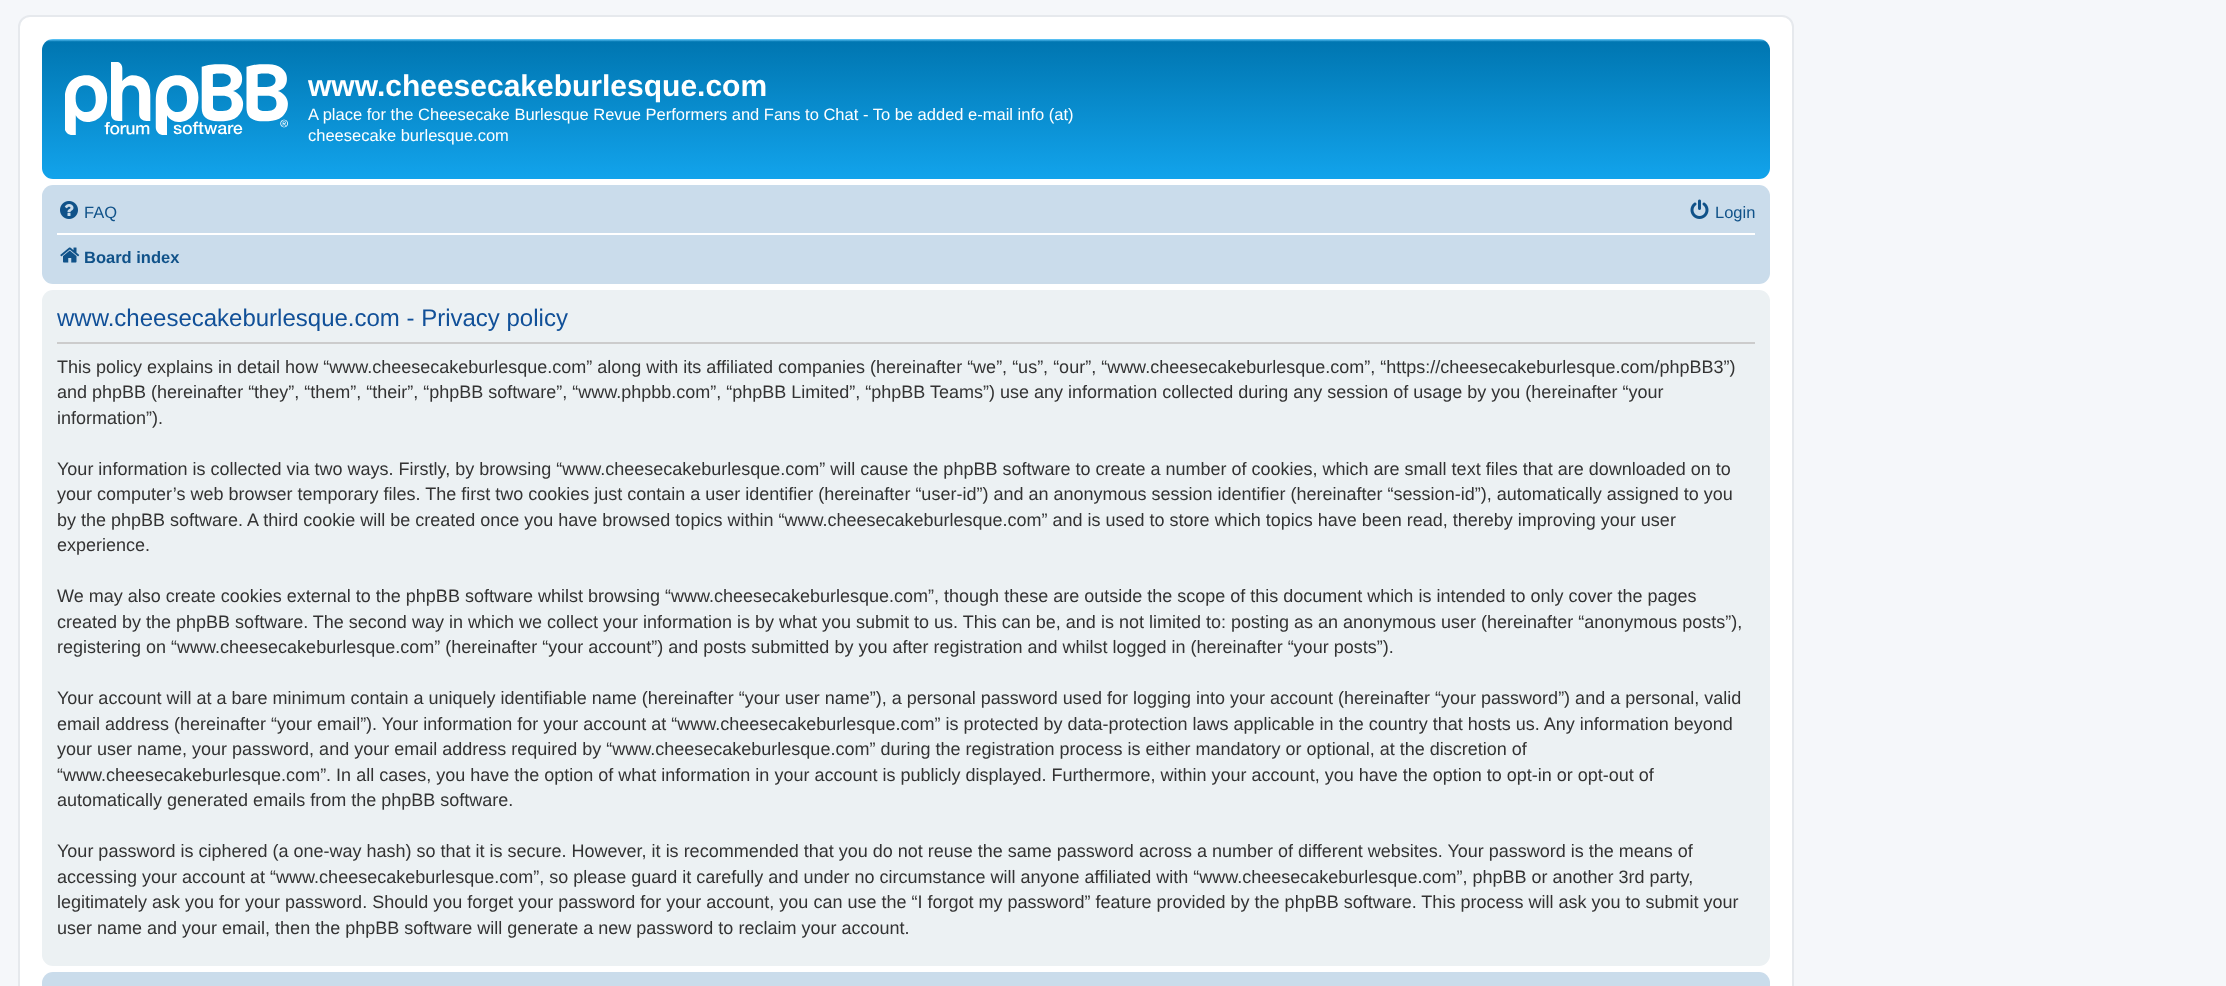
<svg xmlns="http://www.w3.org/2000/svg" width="2226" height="986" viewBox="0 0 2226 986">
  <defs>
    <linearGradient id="g1" gradientUnits="userSpaceOnUse" x1="906" y1="39" x2="906" y2="179"><stop offset="0" stop-color="#6aceff"/><stop offset="0.02" stop-color="#0076b1"/><stop offset="0.99" stop-color="#12a3eb"/><stop offset="1" stop-color="#12a3eb"/></linearGradient>
  </defs>
  <rect width="100%" height="100%" fill="#f5f7fa"/>
  <rect x="19" y="16" width="1774" height="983" rx="11" fill="#ffffff" stroke="#e6e9ed" stroke-width="2"/>
  <rect x="42" y="39" width="1728" height="140" rx="11" fill="url(#g1)"/>
  <image x="65" y="62" width="223" height="73" href="img1.png"/>
  <text x="308" y="96" font-family="Liberation Sans" font-size="30" font-weight="bold" fill="#ffffff">www.cheesecakeburlesque.com</text>
  <text x="308" y="120" font-family="Liberation Sans" font-size="16.5" fill="#ffffff">A place for the Cheesecake Burlesque Revue Performers and Fans to Chat - To be added e-mail info (at)</text>
  <text x="308" y="141" font-family="Liberation Sans" font-size="16.5" fill="#ffffff">cheesecake burlesque.com</text>
  <rect x="42" y="185" width="1728" height="99" rx="11" fill="#cadceb"/>
  <image x="60" y="201" width="18" height="18" href="img2.png"/>
  <text x="84" y="218" font-family="Liberation Sans" font-size="16.5" fill="#105289">FAQ</text>
  <image x="1690" y="199" width="19" height="20" href="img3.png"/>
  <text x="1715" y="218" font-family="Liberation Sans" font-size="16.5" fill="#105289">Login</text>
  <rect x="57" y="233" width="1698" height="2" fill="#ffffff"/>
  <image x="60" y="247" width="20" height="16" href="img4.png"/>
  <text x="84" y="263" font-family="Liberation Sans" font-size="16.5" font-weight="bold" fill="#105289">Board index</text>
  <rect x="42" y="290" width="1728" height="676" rx="11" fill="#ecf1f3"/>
  <rect x="57" y="342" width="1698" height="2" fill="#cccccc"/>
  <text x="57" y="326" font-family="Liberation Sans" font-size="24" fill="#115098">www.cheesecakeburlesque.com - Privacy policy</text>
  <text x="57" y="373" font-family="Liberation Sans" font-size="18" fill="#333333">This policy explains in detail how “www.cheesecakeburlesque.com” along with its affiliated companies (hereinafter “we”, “us”, “our”, “www.cheesecakeburlesque.com”, “https://cheesecakeburlesque.com/phpBB3”)</text>
  <text x="57" y="398" font-family="Liberation Sans" font-size="18" fill="#333333">and phpBB (hereinafter “they”, “them”, “their”, “phpBB software”, “www.phpbb.com”, “phpBB Limited”, “phpBB Teams”) use any information collected during any session of usage by you (hereinafter “your</text>
  <text x="57" y="424" font-family="Liberation Sans" font-size="18" fill="#333333">information”).</text>
  <text x="57" y="475" font-family="Liberation Sans" font-size="18" fill="#333333">Your information is collected via two ways. Firstly, by browsing “www.cheesecakeburlesque.com” will cause the phpBB software to create a number of cookies, which are small text files that are downloaded on to</text>
  <text x="57" y="500" font-family="Liberation Sans" font-size="18" fill="#333333">your computer’s web browser temporary files. The first two cookies just contain a user identifier (hereinafter “user-id”) and an anonymous session identifier (hereinafter “session-id”), automatically assigned to you</text>
  <text x="57" y="526" font-family="Liberation Sans" font-size="18" fill="#333333">by the phpBB software. A third cookie will be created once you have browsed topics within “www.cheesecakeburlesque.com” and is used to store which topics have been read, thereby improving your user</text>
  <text x="57" y="551" font-family="Liberation Sans" font-size="18" fill="#333333">experience.</text>
  <text x="57" y="602" font-family="Liberation Sans" font-size="18" fill="#333333">We may also create cookies external to the phpBB software whilst browsing “www.cheesecakeburlesque.com”, though these are outside the scope of this document which is intended to only cover the pages</text>
  <text x="57" y="628" font-family="Liberation Sans" font-size="18" fill="#333333">created by the phpBB software. The second way in which we collect your information is by what you submit to us. This can be, and is not limited to: posting as an anonymous user (hereinafter “anonymous posts”),</text>
  <text x="57" y="653" font-family="Liberation Sans" font-size="18" fill="#333333">registering on “www.cheesecakeburlesque.com” (hereinafter “your account”) and posts submitted by you after registration and whilst logged in (hereinafter “your posts”).</text>
  <text x="57" y="704" font-family="Liberation Sans" font-size="18" fill="#333333">Your account will at a bare minimum contain a uniquely identifiable name (hereinafter “your user name”), a personal password used for logging into your account (hereinafter “your password”) and a personal, valid</text>
  <text x="57" y="730" font-family="Liberation Sans" font-size="18" fill="#333333">email address (hereinafter “your email”). Your information for your account at “www.cheesecakeburlesque.com” is protected by data-protection laws applicable in the country that hosts us. Any information beyond</text>
  <text x="57" y="755" font-family="Liberation Sans" font-size="18" fill="#333333">your user name, your password, and your email address required by “www.cheesecakeburlesque.com” during the registration process is either mandatory or optional, at the discretion of</text>
  <text x="57" y="781" font-family="Liberation Sans" font-size="18" fill="#333333">“www.cheesecakeburlesque.com”. In all cases, you have the option of what information in your account is publicly displayed. Furthermore, within your account, you have the option to opt-in or opt-out of</text>
  <text x="57" y="806" font-family="Liberation Sans" font-size="18" fill="#333333">automatically generated emails from the phpBB software.</text>
  <text x="57" y="857" font-family="Liberation Sans" font-size="18" fill="#333333">Your password is ciphered (a one-way hash) so that it is secure. However, it is recommended that you do not reuse the same password across a number of different websites. Your password is the means of</text>
  <text x="57" y="883" font-family="Liberation Sans" font-size="18" fill="#333333">accessing your account at “www.cheesecakeburlesque.com”, so please guard it carefully and under no circumstance will anyone affiliated with “www.cheesecakeburlesque.com”, phpBB or another 3rd party,</text>
  <text x="57" y="908" font-family="Liberation Sans" font-size="18" fill="#333333">legitimately ask you for your password. Should you forget your password for your account, you can use the “I forgot my password” feature provided by the phpBB software. This process will ask you to submit your</text>
  <text x="57" y="934" font-family="Liberation Sans" font-size="18" fill="#333333">user name and your email, then the phpBB software will generate a new password to reclaim your account.</text>
  <rect x="42" y="972" width="1728" height="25" rx="11" fill="#cadceb"/>
</svg>
